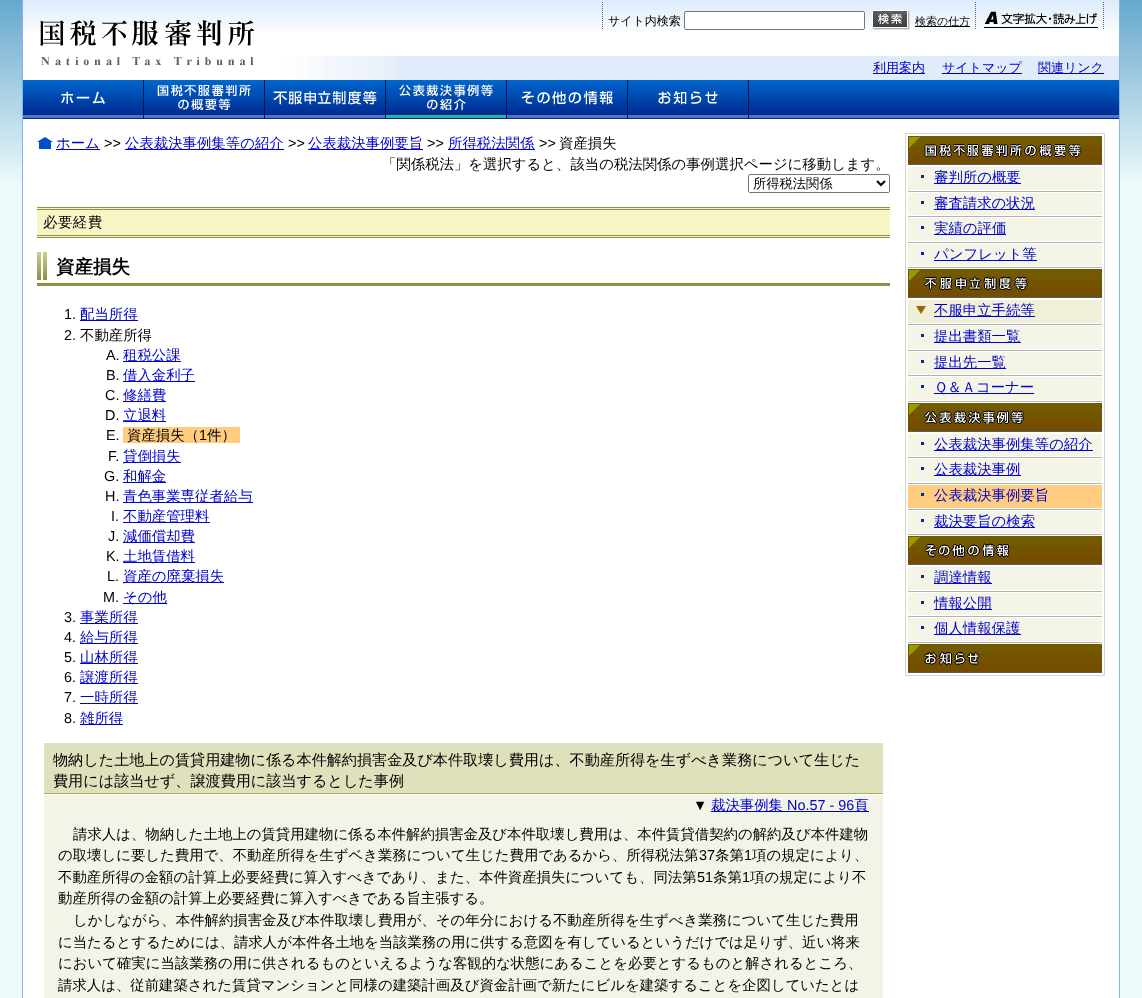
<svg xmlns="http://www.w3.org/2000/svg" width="1142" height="998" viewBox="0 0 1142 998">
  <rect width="100%" height="100%" fill="#ecfafb"/>
  <image x="0" y="0" width="1142" height="179" href="img1.png"/>
  <rect x="23" y="31" width="1096" height="967" fill="#ffffff"/>
  <rect x="1119" y="0" width="1" height="998" fill="#85b2ef"/>
  <rect x="22" y="0" width="1" height="998" fill="#85b2ef"/>
  <image x="23" y="0" width="1096" height="31" href="img2.png"/>
  <image x="40" y="19" width="214" height="47" href="img3.png"/>
  <image x="602" y="2" width="1" height="27" href="img4.png"/>
  <text x="608" y="25" font-family="WenQuanYi Zen Hei" font-size="12" font-weight="500" fill="#000000">サイト内検索</text>
  <rect x="684.5" y="11.5" width="180" height="18" rx="1.5" fill="#ffffff" stroke="#767676"/>
  <image x="872" y="10" width="38" height="20" href="img5.png"/>
  <rect x="915" y="26" width="55" height="1" fill="#000000"/>
  <text x="915" y="25" font-family="WenQuanYi Zen Hei" font-size="11" font-weight="500" fill="#000000">検索の仕方</text>
  <image x="975" y="2" width="1" height="27" href="img4.png"/>
  <image x="984" y="11" width="114" height="17" href="img6.png"/>
  <image x="1103" y="2" width="1" height="27" href="img4.png"/>
  <rect x="397" y="56" width="722" height="24" fill="#e0ecf9"/>
  <image x="275" y="56" width="122" height="24" href="img7.png"/>
  <rect x="873" y="73" width="52" height="1" fill="#0000cc"/>
  <text x="873" y="72" font-family="WenQuanYi Zen Hei" font-size="13" font-weight="500" fill="#0000cc">利用案内</text>
  <rect x="942" y="73" width="80" height="1" fill="#0000cc"/>
  <text x="942" y="72" font-family="WenQuanYi Zen Hei" font-size="13" font-weight="500" fill="#0000cc">サイトマップ</text>
  <rect x="1038" y="73" width="66" height="1" fill="#0000cc"/>
  <text x="1038" y="72" font-family="WenQuanYi Zen Hei" font-size="13" font-weight="500" fill="#0000cc">関連リンク</text>
  <image x="749" y="80" width="370" height="39" href="img8.png"/>
  <image x="23" y="80" width="121" height="39" href="img9.png"/>
  <image x="144" y="80" width="121" height="39" href="img10.png"/>
  <image x="265" y="80" width="121" height="39" href="img11.png"/>
  <image x="386" y="80" width="121" height="39" href="img12.png"/>
  <image x="507" y="80" width="121" height="39" href="img13.png"/>
  <image x="628" y="80" width="121" height="39" href="img14.png"/>
  <image x="37" y="137" width="16" height="12" href="img15.png"/>
  <rect x="56" y="149" width="44" height="1" fill="#0000cc"/>
  <text x="56" y="148" font-family="WenQuanYi Zen Hei" font-size="14.4" font-weight="500" fill="#0000cc">ホーム</text>
  <text x="104" y="148" font-family="Liberation Sans" font-size="14.4" fill="#000000">&gt;&gt;</text>
  <rect x="125" y="149" width="159" height="1" fill="#0000cc"/>
  <text x="125" y="148" font-family="WenQuanYi Zen Hei" font-size="14.4" font-weight="500" fill="#0000cc">公表裁決事例集等の紹介</text>
  <text x="288" y="148" font-family="Liberation Sans" font-size="14.4" fill="#000000">&gt;&gt;</text>
  <rect x="308" y="149" width="115" height="1" fill="#0000cc"/>
  <text x="308" y="148" font-family="WenQuanYi Zen Hei" font-size="14.4" font-weight="500" fill="#0000cc">公表裁決事例要旨</text>
  <text x="427" y="148" font-family="Liberation Sans" font-size="14.4" fill="#000000">&gt;&gt;</text>
  <rect x="448" y="149" width="87" height="1" fill="#0000cc"/>
  <text x="448" y="148" font-family="WenQuanYi Zen Hei" font-size="14.4" font-weight="500" fill="#0000cc">所得税法関係</text>
  <text x="539" y="148" font-family="Liberation Sans" font-size="14.4" fill="#000000">&gt;&gt;</text>
  <text x="559" y="148" font-family="WenQuanYi Zen Hei" font-size="14.4" font-weight="500" fill="#000000">資産損失</text>
  <text x="382" y="169" font-family="WenQuanYi Zen Hei" font-size="14.4" font-weight="500" fill="#000000">「関係税法」を選択すると、該当の税法関係の事例選択ページに移動します。</text>
  <rect x="748.5" y="174.5" width="141" height="18" rx="1.5" fill="none" stroke="#767676"/>
  <path d="M877 181L881 185L885 181" fill="none" stroke="#000000" stroke-width="2"/>
  <text x="753" y="188" font-family="WenQuanYi Zen Hei" font-size="13.25" font-weight="500" fill="#000000">所得税法関係</text>
  <rect x="37" y="208" width="853" height="29" fill="#f8f5c7"/>
  <rect x="37" y="207" width="853" height="1" fill="#8e9045"/>
  <rect x="37" y="209" width="853" height="1" fill="#8e9045"/>
  <rect x="37" y="235" width="853" height="1" fill="#8e9045"/>
  <rect x="37" y="237" width="853" height="1" fill="#8e9045"/>
  <text x="43" y="227" font-family="WenQuanYi Zen Hei" font-size="14.4" font-weight="500" letter-spacing="0.5" fill="#000000">必要経費</text>
  <image x="37" y="252" width="10" height="28" href="img16.png"/>
  <rect x="37" y="283" width="853" height="3" fill="#8e9045"/>
  <text x="56" y="273" font-family="WenQuanYi Zen Hei" font-size="18.5" font-weight="bold" fill="#000000">資産損失</text>
  <text x="64" y="319" font-family="Liberation Sans" font-size="14.4" fill="#000000">1.</text>
  <rect x="80" y="320" width="58" height="1" fill="#0000cc"/>
  <text x="80" y="319" font-family="WenQuanYi Zen Hei" font-size="14.4" font-weight="500" fill="#0000cc">配当所得</text>
  <text x="64" y="340" font-family="Liberation Sans" font-size="14.4" fill="#000000">2.</text>
  <text x="80" y="340" font-family="WenQuanYi Zen Hei" font-size="14.4" font-weight="500" fill="#000000">不動産所得</text>
  <text x="106" y="360" font-family="Liberation Sans" font-size="14.4" fill="#000000">A.</text>
  <rect x="123" y="361" width="58" height="1" fill="#0000cc"/>
  <text x="123" y="360" font-family="WenQuanYi Zen Hei" font-size="14.4" font-weight="500" fill="#0000cc">租税公課</text>
  <text x="106" y="380" font-family="Liberation Sans" font-size="14.4" fill="#000000">B.</text>
  <rect x="123" y="381" width="72" height="1" fill="#0000cc"/>
  <text x="123" y="380" font-family="WenQuanYi Zen Hei" font-size="14.4" font-weight="500" fill="#0000cc">借入金利子</text>
  <text x="105" y="400" font-family="Liberation Sans" font-size="14.4" fill="#000000">C.</text>
  <rect x="123" y="401" width="43" height="1" fill="#0000cc"/>
  <text x="123" y="400" font-family="WenQuanYi Zen Hei" font-size="14.4" font-weight="500" fill="#0000cc">修繕費</text>
  <text x="105" y="420" font-family="Liberation Sans" font-size="14.4" fill="#000000">D.</text>
  <rect x="123" y="421" width="43" height="1" fill="#0000cc"/>
  <text x="123" y="420" font-family="WenQuanYi Zen Hei" font-size="14.4" font-weight="500" fill="#0000cc">立退料</text>
  <text x="106" y="440" font-family="Liberation Sans" font-size="14.4" fill="#000000">E.</text>
  <rect x="123" y="427" width="117" height="16" fill="#ffcc80"/>
  <text x="127" y="440" font-family="WenQuanYi Zen Hei" font-size="14.4" font-weight="500" fill="#000000">資産損失（</text>
  <text x="199" y="440" font-family="Liberation Sans" font-size="14.4" fill="#000000">1</text>
  <text x="207" y="440" font-family="WenQuanYi Zen Hei" font-size="14.4" font-weight="500" fill="#000000">件）</text>
  <text x="108" y="461" font-family="Liberation Sans" font-size="14.4" fill="#000000">F.</text>
  <rect x="123" y="462" width="58" height="1" fill="#0000cc"/>
  <text x="123" y="461" font-family="WenQuanYi Zen Hei" font-size="14.4" font-weight="500" fill="#0000cc">貸倒損失</text>
  <text x="104" y="481" font-family="Liberation Sans" font-size="14.4" fill="#000000">G.</text>
  <rect x="123" y="482" width="43" height="1" fill="#0000cc"/>
  <text x="123" y="481" font-family="WenQuanYi Zen Hei" font-size="14.4" font-weight="500" fill="#0000cc">和解金</text>
  <text x="105" y="501" font-family="Liberation Sans" font-size="14.4" fill="#000000">H.</text>
  <rect x="123" y="502" width="130" height="1" fill="#0000cc"/>
  <text x="123" y="501" font-family="WenQuanYi Zen Hei" font-size="14.4" font-weight="500" fill="#0000cc">青色事業専従者給与</text>
  <text x="111" y="521" font-family="Liberation Sans" font-size="14.4" fill="#000000">I.</text>
  <rect x="123" y="522" width="87" height="1" fill="#0000cc"/>
  <text x="123" y="521" font-family="WenQuanYi Zen Hei" font-size="14.4" font-weight="500" fill="#0000cc">不動産管理料</text>
  <text x="108" y="541" font-family="Liberation Sans" font-size="14.4" fill="#000000">J.</text>
  <rect x="123" y="542" width="72" height="1" fill="#0000cc"/>
  <text x="123" y="541" font-family="WenQuanYi Zen Hei" font-size="14.4" font-weight="500" fill="#0000cc">減価償却費</text>
  <text x="106" y="561" font-family="Liberation Sans" font-size="14.4" fill="#000000">K.</text>
  <rect x="123" y="562" width="72" height="1" fill="#0000cc"/>
  <text x="123" y="561" font-family="WenQuanYi Zen Hei" font-size="14.4" font-weight="500" fill="#0000cc">土地賃借料</text>
  <text x="107" y="581" font-family="Liberation Sans" font-size="14.4" fill="#000000">L.</text>
  <rect x="123" y="582" width="101" height="1" fill="#0000cc"/>
  <text x="123" y="581" font-family="WenQuanYi Zen Hei" font-size="14.4" font-weight="500" fill="#0000cc">資産の廃棄損失</text>
  <text x="103" y="602" font-family="Liberation Sans" font-size="14.4" fill="#000000">M.</text>
  <rect x="123" y="603" width="44" height="1" fill="#0000cc"/>
  <text x="123" y="602" font-family="WenQuanYi Zen Hei" font-size="14.4" font-weight="500" fill="#0000cc">その他</text>
  <text x="64" y="622" font-family="Liberation Sans" font-size="14.4" fill="#000000">3.</text>
  <rect x="80" y="623" width="58" height="1" fill="#0000cc"/>
  <text x="80" y="622" font-family="WenQuanYi Zen Hei" font-size="14.4" font-weight="500" fill="#0000cc">事業所得</text>
  <text x="64" y="642" font-family="Liberation Sans" font-size="14.4" fill="#000000">4.</text>
  <rect x="80" y="643" width="58" height="1" fill="#0000cc"/>
  <text x="80" y="642" font-family="WenQuanYi Zen Hei" font-size="14.4" font-weight="500" fill="#0000cc">給与所得</text>
  <text x="64" y="662" font-family="Liberation Sans" font-size="14.4" fill="#000000">5.</text>
  <rect x="80" y="663" width="58" height="1" fill="#0000cc"/>
  <text x="80" y="662" font-family="WenQuanYi Zen Hei" font-size="14.4" font-weight="500" fill="#0000cc">山林所得</text>
  <text x="64" y="682" font-family="Liberation Sans" font-size="14.4" fill="#000000">6.</text>
  <rect x="80" y="683" width="58" height="1" fill="#0000cc"/>
  <text x="80" y="682" font-family="WenQuanYi Zen Hei" font-size="14.4" font-weight="500" fill="#0000cc">譲渡所得</text>
  <text x="64" y="702" font-family="Liberation Sans" font-size="14.4" fill="#000000">7.</text>
  <rect x="80" y="703" width="58" height="1" fill="#0000cc"/>
  <text x="80" y="702" font-family="WenQuanYi Zen Hei" font-size="14.4" font-weight="500" fill="#0000cc">一時所得</text>
  <text x="64" y="723" font-family="Liberation Sans" font-size="14.4" fill="#000000">8.</text>
  <rect x="80" y="724" width="43" height="1" fill="#0000cc"/>
  <text x="80" y="723" font-family="WenQuanYi Zen Hei" font-size="14.4" font-weight="500" fill="#0000cc">雑所得</text>
  <rect x="44" y="743" width="839" height="50" fill="#dfe0bc"/>
  <rect x="44" y="793" width="839" height="1" fill="#acae51"/>
  <text x="53" y="765" font-family="WenQuanYi Zen Hei" font-size="15.12" font-weight="500" fill="#000000">物納した土地上の賃貸用建物に係る本件解約損害金及び本件取壊し費用は、不動産所得を生ずべき業務について生じた</text>
  <text x="53" y="786" font-family="WenQuanYi Zen Hei" font-size="15.12" font-weight="500" fill="#000000">費用には該当せず、譲渡費用に該当するとした事例</text>
  <rect x="44" y="795" width="839" height="203" fill="#f3f4e8"/>
  <text x="693" y="810" font-family="Liberation Sans" font-size="14.4" fill="#000000">▼</text>
  <rect x="711" y="811" width="158" height="1" fill="#0000cc"/>
  <text x="711" y="810" font-family="WenQuanYi Zen Hei" font-size="14.4" font-weight="500" fill="#0000cc">裁決事例集</text>
  <text x="787" y="810" font-family="Liberation Sans" font-size="14.4" fill="#0000cc">No.57 - 96</text>
  <text x="854" y="810" font-family="WenQuanYi Zen Hei" font-size="14.4" font-weight="500" fill="#0000cc">頁</text>
  <text x="73" y="839" font-family="WenQuanYi Zen Hei" font-size="14.4" font-weight="500" fill="#000000">請求人は、物納した土地上の賃貸用建物に係る本件解約損害金及び本件取壊し費用は、本件賃貸借契約の解約及び本件建物</text>
  <text x="58" y="860" font-family="WenQuanYi Zen Hei" font-size="14.4" font-weight="500" fill="#000000">の取壊しに要した費用で、不動産所得を生ずベき業務について生じた費用であるから、所得税法第</text>
  <text x="699" y="860" font-family="Liberation Sans" font-size="14.4" fill="#000000">37</text>
  <text x="715" y="860" font-family="WenQuanYi Zen Hei" font-size="14.4" font-weight="500" fill="#000000">条第</text>
  <text x="744" y="860" font-family="Liberation Sans" font-size="14.4" fill="#000000">1</text>
  <text x="752" y="860" font-family="WenQuanYi Zen Hei" font-size="14.4" font-weight="500" fill="#000000">項の規定により、</text>
  <text x="58" y="882" font-family="WenQuanYi Zen Hei" font-size="14.4" font-weight="500" fill="#000000">不動産所得の金額の計算上必要経費に算入すべきであり、また、本件資産損失についても、同法第</text>
  <text x="697" y="882" font-family="Liberation Sans" font-size="14.4" fill="#000000">51</text>
  <text x="713" y="882" font-family="WenQuanYi Zen Hei" font-size="14.4" font-weight="500" fill="#000000">条第</text>
  <text x="742" y="882" font-family="Liberation Sans" font-size="14.4" fill="#000000">1</text>
  <text x="750" y="882" font-family="WenQuanYi Zen Hei" font-size="14.4" font-weight="500" fill="#000000">項の規定により不</text>
  <text x="58" y="903" font-family="WenQuanYi Zen Hei" font-size="14.4" font-weight="500" fill="#000000">動産所得の金額の計算上必要経費に算入すべきである旨主張する。</text>
  <text x="73" y="925" font-family="WenQuanYi Zen Hei" font-size="14.4" font-weight="500" fill="#000000">しかしながら、本件解約損害金及び本件取壊し費用が、その年分における不動産所得を生ずべき業務について生じた費用</text>
  <text x="58" y="947" font-family="WenQuanYi Zen Hei" font-size="14.4" font-weight="500" fill="#000000">に当たるとするためには、請求人が本件各土地を当該業務の用に供する意図を有しているというだけでは足りず、近い将来</text>
  <text x="58" y="968" font-family="WenQuanYi Zen Hei" font-size="14.4" font-weight="500" fill="#000000">において確実に当該業務の用に供されるものといえるような客観的な状態にあることを必要とするものと解されるところ、</text>
  <text x="58" y="990" font-family="WenQuanYi Zen Hei" font-size="14.4" font-weight="500" fill="#000000">請求人は、従前建築された賃貸マンションと同様の建築計画及び資金計画で新たにビルを建築することを企図していたとは</text>
  <rect x="905.5" y="133.5" width="199" height="542" fill="none" stroke="#d6d6d0"/>
  <image x="908" y="136" width="194" height="29" href="img17.png"/>
  <rect x="908" y="191" width="194" height="1" fill="#b2b2b2"/>
  <rect x="908" y="167" width="194" height="23" fill="#f5f5e7"/>
  <rect x="921" y="175" width="3" height="3" fill="#002d94"/>
  <rect x="934" y="183" width="87" height="1" fill="#0000cc"/>
  <text x="934" y="182" font-family="WenQuanYi Zen Hei" font-size="14.4" font-weight="500" fill="#0000cc">審判所の概要</text>
  <rect x="908" y="216" width="194" height="1" fill="#b2b2b2"/>
  <rect x="908" y="193" width="194" height="22" fill="#f5f5e7"/>
  <rect x="921" y="201" width="3" height="3" fill="#002d94"/>
  <rect x="934" y="209" width="101" height="1" fill="#0000cc"/>
  <text x="934" y="208" font-family="WenQuanYi Zen Hei" font-size="14.4" font-weight="500" fill="#0000cc">審査請求の状況</text>
  <rect x="908" y="242" width="194" height="1" fill="#b2b2b2"/>
  <rect x="908" y="218" width="194" height="23" fill="#f5f5e7"/>
  <rect x="921" y="226" width="3" height="3" fill="#002d94"/>
  <rect x="934" y="234" width="72" height="1" fill="#0000cc"/>
  <text x="934" y="233" font-family="WenQuanYi Zen Hei" font-size="14.4" font-weight="500" fill="#0000cc">実績の評価</text>
  <rect x="908" y="267" width="194" height="1" fill="#b2b2b2"/>
  <rect x="908" y="244" width="194" height="22" fill="#f5f5e7"/>
  <rect x="921" y="252" width="3" height="3" fill="#002d94"/>
  <rect x="934" y="260" width="103" height="1" fill="#0000cc"/>
  <text x="934" y="259" font-family="WenQuanYi Zen Hei" font-size="14.4" font-weight="500" fill="#0000cc">パンフレット等</text>
  <image x="908" y="269" width="194" height="29" href="img18.png"/>
  <rect x="908" y="324" width="194" height="1" fill="#b2b2b2"/>
  <rect x="908" y="300" width="194" height="23" fill="#f0f0d9"/>
  <image x="916" y="306" width="10" height="8" href="img19.png"/>
  <rect x="934" y="316" width="101" height="1" fill="#0000cc"/>
  <text x="934" y="315" font-family="WenQuanYi Zen Hei" font-size="14.4" font-weight="500" fill="#0000cc">不服申立手続等</text>
  <rect x="908" y="350" width="194" height="1" fill="#b2b2b2"/>
  <rect x="908" y="326" width="194" height="23" fill="#f5f5e7"/>
  <rect x="921" y="334" width="3" height="3" fill="#002d94"/>
  <rect x="934" y="342" width="87" height="1" fill="#0000cc"/>
  <text x="934" y="341" font-family="WenQuanYi Zen Hei" font-size="14.4" font-weight="500" fill="#0000cc">提出書類一覧</text>
  <rect x="908" y="375" width="194" height="1" fill="#b2b2b2"/>
  <rect x="908" y="352" width="194" height="22" fill="#f5f5e7"/>
  <rect x="921" y="360" width="3" height="3" fill="#002d94"/>
  <rect x="934" y="368" width="72" height="1" fill="#0000cc"/>
  <text x="934" y="367" font-family="WenQuanYi Zen Hei" font-size="14.4" font-weight="500" fill="#0000cc">提出先一覧</text>
  <rect x="908" y="401" width="194" height="1" fill="#b2b2b2"/>
  <rect x="908" y="377" width="194" height="23" fill="#f5f5e7"/>
  <rect x="921" y="385" width="3" height="3" fill="#002d94"/>
  <rect x="934" y="393" width="100" height="1" fill="#0000cc"/>
  <text x="934" y="392" font-family="WenQuanYi Zen Hei" font-size="14.4" font-weight="500" fill="#0000cc">Ｑ＆Ａコーナー</text>
  <image x="908" y="403" width="194" height="29" href="img20.png"/>
  <rect x="908" y="457" width="194" height="1" fill="#b2b2b2"/>
  <rect x="908" y="434" width="194" height="22" fill="#f5f5e7"/>
  <rect x="921" y="442" width="3" height="3" fill="#002d94"/>
  <rect x="934" y="450" width="159" height="1" fill="#0000cc"/>
  <text x="934" y="449" font-family="WenQuanYi Zen Hei" font-size="14.4" font-weight="500" fill="#0000cc">公表裁決事例集等の紹介</text>
  <rect x="908" y="483" width="194" height="1" fill="#b2b2b2"/>
  <rect x="908" y="459" width="194" height="23" fill="#f5f5e7"/>
  <rect x="921" y="467" width="3" height="3" fill="#002d94"/>
  <rect x="934" y="475" width="87" height="1" fill="#0000cc"/>
  <text x="934" y="474" font-family="WenQuanYi Zen Hei" font-size="14.4" font-weight="500" fill="#0000cc">公表裁決事例</text>
  <rect x="908" y="509" width="194" height="1" fill="#b2b2b2"/>
  <rect x="908" y="485" width="194" height="23" fill="#ffcc80"/>
  <rect x="921" y="493" width="3" height="3" fill="#002d94"/>
  <text x="934" y="500" font-family="WenQuanYi Zen Hei" font-size="14.4" font-weight="500" fill="#0000cc">公表裁決事例要旨</text>
  <rect x="908" y="534" width="194" height="1" fill="#b2b2b2"/>
  <rect x="908" y="511" width="194" height="22" fill="#f5f5e7"/>
  <rect x="921" y="519" width="3" height="3" fill="#002d94"/>
  <rect x="934" y="527" width="101" height="1" fill="#0000cc"/>
  <text x="934" y="526" font-family="WenQuanYi Zen Hei" font-size="14.4" font-weight="500" fill="#0000cc">裁決要旨の検索</text>
  <image x="908" y="536" width="194" height="29" href="img21.png"/>
  <rect x="908" y="591" width="194" height="1" fill="#b2b2b2"/>
  <rect x="908" y="567" width="194" height="23" fill="#f5f5e7"/>
  <rect x="921" y="575" width="3" height="3" fill="#002d94"/>
  <rect x="934" y="583" width="58" height="1" fill="#0000cc"/>
  <text x="934" y="582" font-family="WenQuanYi Zen Hei" font-size="14.4" font-weight="500" fill="#0000cc">調達情報</text>
  <rect x="908" y="616" width="194" height="1" fill="#b2b2b2"/>
  <rect x="908" y="593" width="194" height="22" fill="#f5f5e7"/>
  <rect x="921" y="601" width="3" height="3" fill="#002d94"/>
  <rect x="934" y="609" width="58" height="1" fill="#0000cc"/>
  <text x="934" y="608" font-family="WenQuanYi Zen Hei" font-size="14.4" font-weight="500" fill="#0000cc">情報公開</text>
  <rect x="908" y="642" width="194" height="1" fill="#b2b2b2"/>
  <rect x="908" y="618" width="194" height="23" fill="#f5f5e7"/>
  <rect x="921" y="626" width="3" height="3" fill="#002d94"/>
  <rect x="934" y="634" width="87" height="1" fill="#0000cc"/>
  <text x="934" y="633" font-family="WenQuanYi Zen Hei" font-size="14.4" font-weight="500" fill="#0000cc">個人情報保護</text>
  <image x="908" y="644" width="194" height="29" href="img22.png"/>
</svg>
